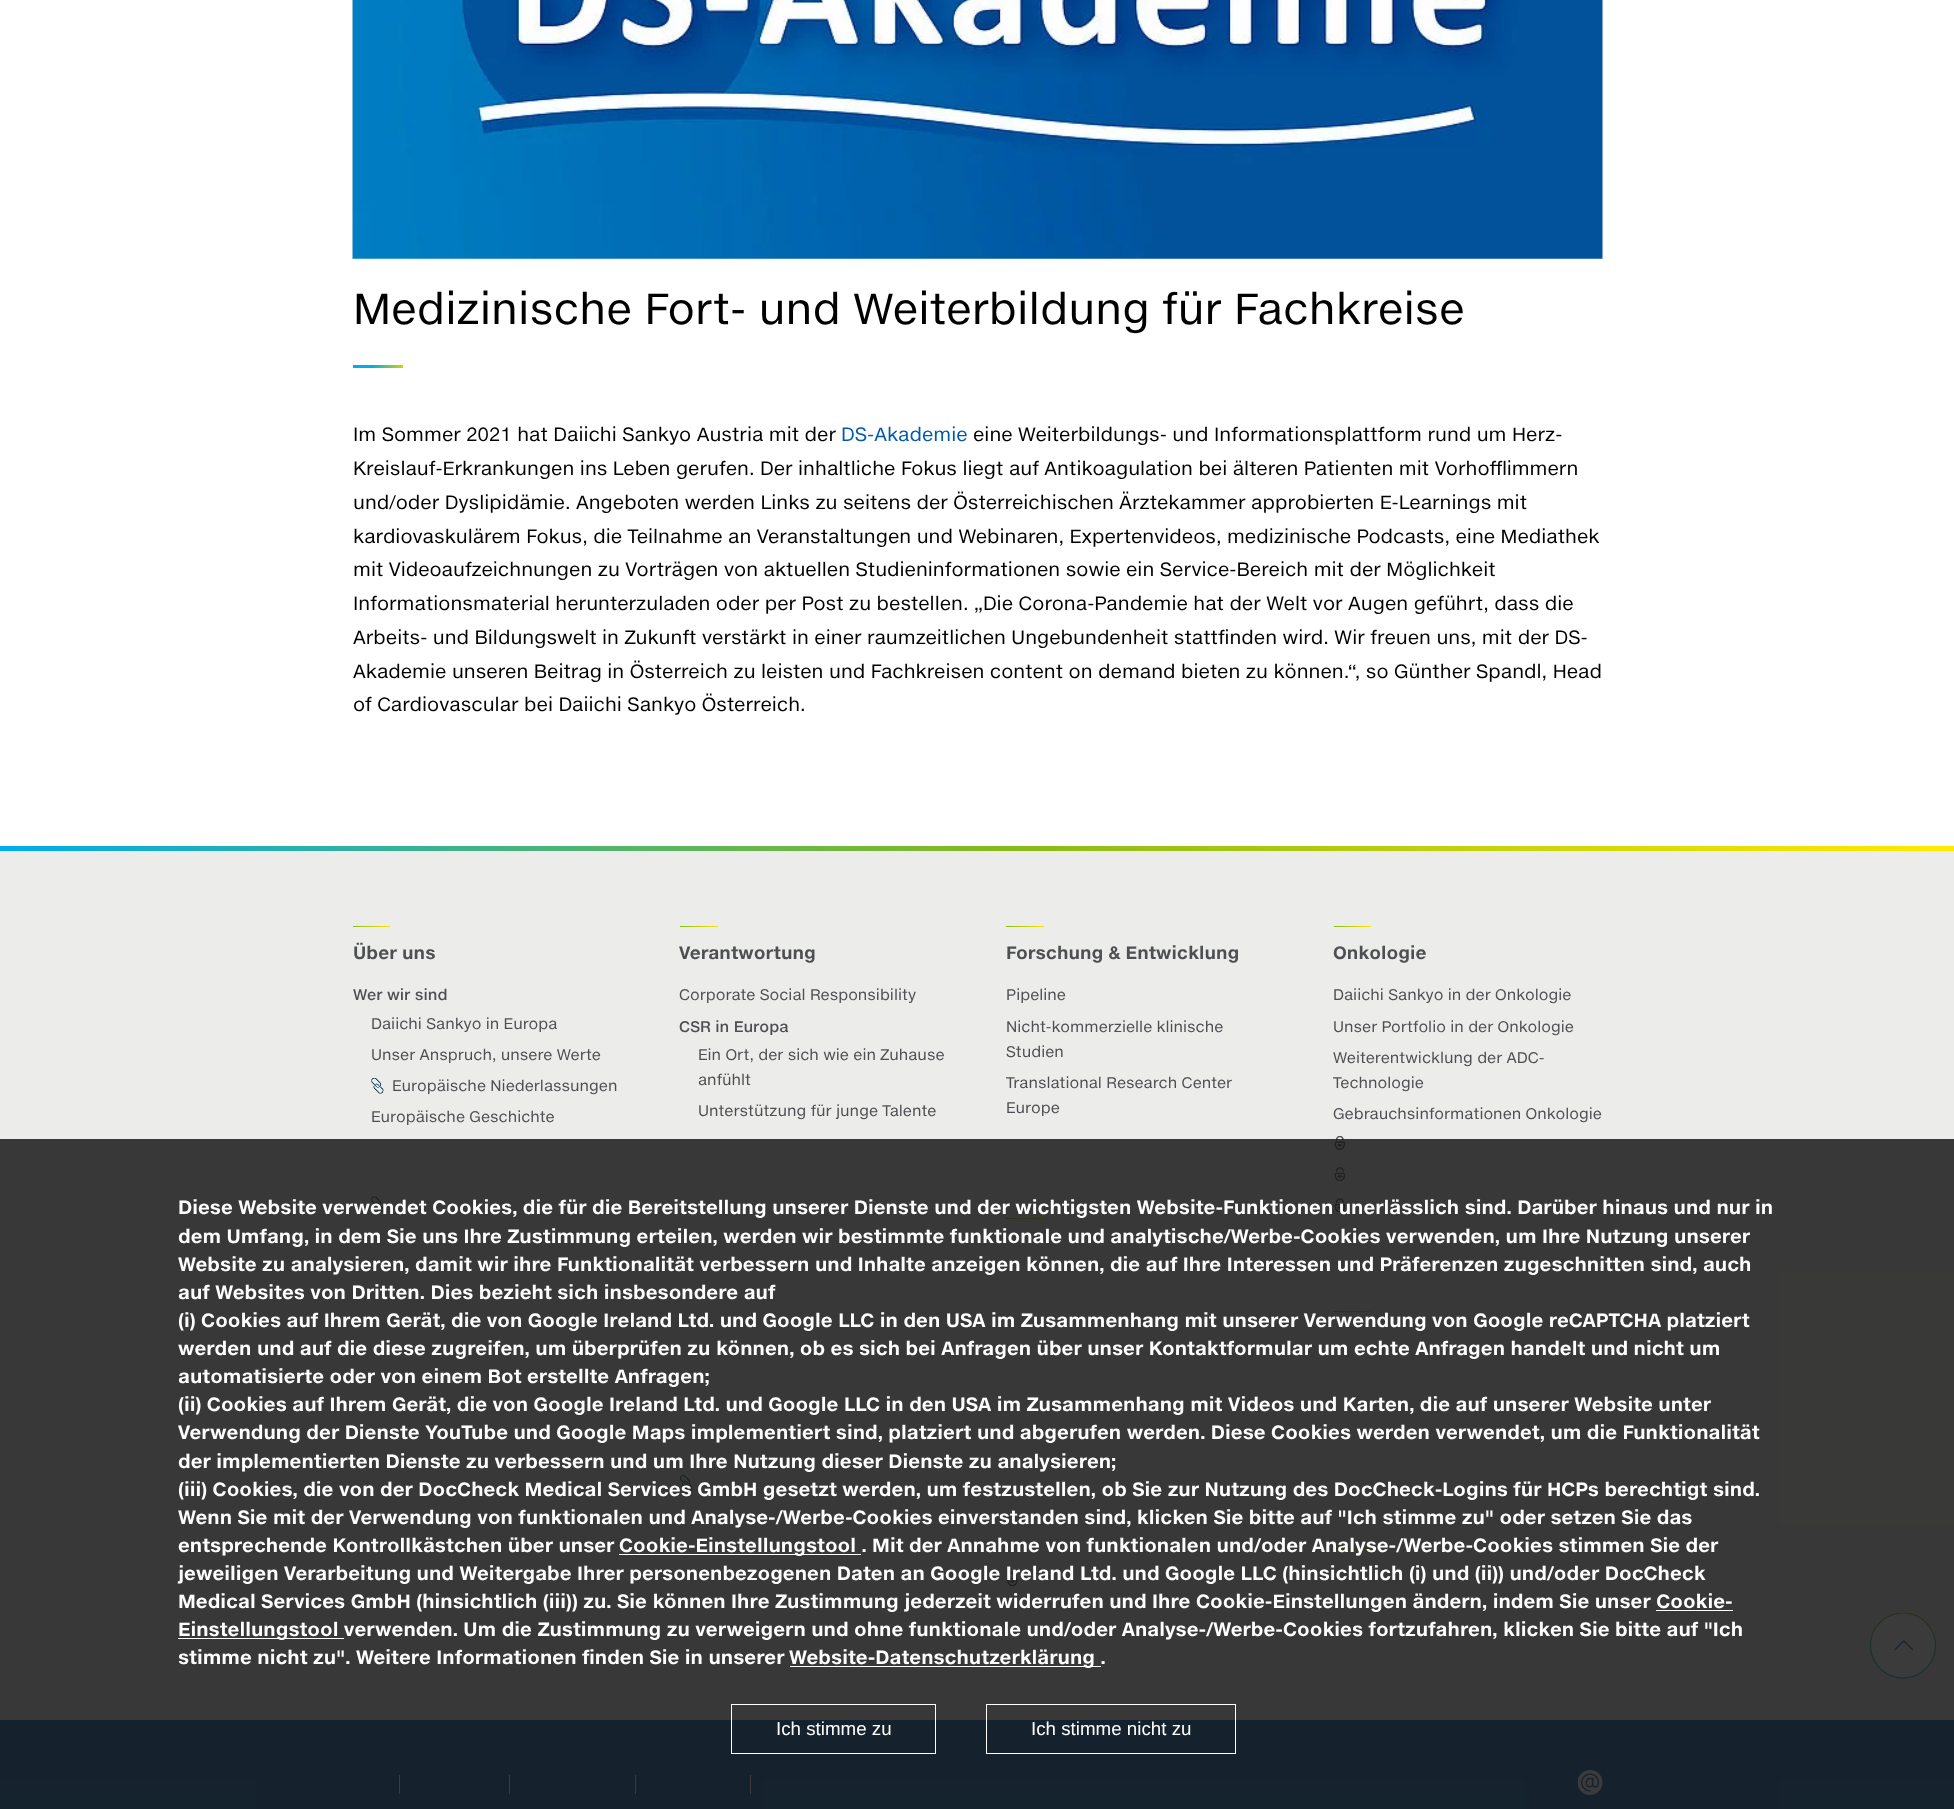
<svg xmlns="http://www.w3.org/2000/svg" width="1954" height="1809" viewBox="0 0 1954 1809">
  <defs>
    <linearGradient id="g1" gradientUnits="userSpaceOnUse" x1="353" y1="366" x2="403" y2="366"><stop offset="0.38" stop-color="#00acea"/><stop offset="0.99" stop-color="#cfd300"/></linearGradient>
    <linearGradient id="g2" gradientUnits="userSpaceOnUse" x1="0" y1="849" x2="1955" y2="849"><stop offset="0" stop-color="#00acea"/><stop offset="0.52" stop-color="#89ba17"/><stop offset="0.99" stop-color="#ffe900"/></linearGradient>
    <linearGradient id="g3" gradientUnits="userSpaceOnUse" x1="353" y1="927" x2="390" y2="927"><stop offset="0" stop-color="#8abb17"/><stop offset="1" stop-color="#f8e601"/></linearGradient>
    <linearGradient id="g4" gradientUnits="userSpaceOnUse" x1="680" y1="927" x2="718" y2="927"><stop offset="0" stop-color="#8abb17"/><stop offset="1" stop-color="#f8e601"/></linearGradient>
    <linearGradient id="g5" gradientUnits="userSpaceOnUse" x1="1006" y1="927" x2="1044" y2="927"><stop offset="0" stop-color="#8abb17"/><stop offset="1" stop-color="#f8e601"/></linearGradient>
    <linearGradient id="g6" gradientUnits="userSpaceOnUse" x1="1334" y1="927" x2="1371" y2="927"><stop offset="0" stop-color="#8abb17"/><stop offset="1" stop-color="#f8e601"/></linearGradient>
    <linearGradient id="g7" gradientUnits="userSpaceOnUse" x1="1006" y1="1218" x2="1044" y2="1218"><stop offset="0" stop-color="#8abb17"/><stop offset="1" stop-color="#f8e601"/></linearGradient>
    <linearGradient id="g8" gradientUnits="userSpaceOnUse" x1="1334" y1="1312" x2="1371" y2="1312"><stop offset="0" stop-color="#8abb17"/><stop offset="1" stop-color="#f8e601"/></linearGradient>
    <linearGradient id="g9" gradientUnits="userSpaceOnUse" x1="1334" y1="1548" x2="1371" y2="1548"><stop offset="0" stop-color="#8abb17"/><stop offset="1" stop-color="#f8e601"/></linearGradient>
  </defs>
  <rect width="100%" height="100%" fill="#ffffff"/>
  <image x="352" y="0" width="1251" height="259" href="img1.png"/>
  <text x="353" y="324" font-family="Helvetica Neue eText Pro" font-size="42.5" fill="#000000">Medizinische Fort- und Weiterbildung für Fachkreise</text>
  <rect x="353" y="365" width="50" height="3" fill="url(#g1)"/>
  <text x="353" y="441" font-family="Helvetica Neue eText Pro" font-size="18.75" fill="#000000">Im Sommer 2021 hat Daiichi Sankyo Austria mit der</text>
  <text x="841" y="441" font-family="Helvetica Neue eText Pro" font-size="18.75" fill="#005baa">DS-Akademie</text>
  <text x="973" y="441" font-family="Helvetica Neue eText Pro" font-size="18.75" fill="#000000">eine Weiterbildungs- und Informationsplattform rund um Herz-</text>
  <text x="353" y="475" font-family="Helvetica Neue eText Pro" font-size="18.75" fill="#000000">Kreislauf-Erkrankungen ins Leben gerufen. Der inhaltliche Fokus liegt auf Antikoagulation bei älteren Patienten mit Vorhofflimmern</text>
  <text x="353" y="509" font-family="Helvetica Neue eText Pro" font-size="18.75" fill="#000000">und/oder Dyslipidämie. Angeboten werden Links zu seitens der Österreichischen Ärztekammer approbierten E-Learnings mit</text>
  <text x="353" y="543" font-family="Helvetica Neue eText Pro" font-size="18.75" fill="#000000">kardiovaskulärem Fokus, die Teilnahme an Veranstaltungen und Webinaren, Expertenvideos, medizinische Podcasts, eine Mediathek</text>
  <text x="353" y="576" font-family="Helvetica Neue eText Pro" font-size="18.75" fill="#000000">mit Videoaufzeichnungen zu Vorträgen von aktuellen Studieninformationen sowie ein Service-Bereich mit der Möglichkeit</text>
  <text x="353" y="610" font-family="Helvetica Neue eText Pro" font-size="18.75" fill="#000000">Informationsmaterial herunterzuladen oder per Post zu bestellen. „Die Corona-Pandemie hat der Welt vor Augen geführt, dass die</text>
  <text x="353" y="644" font-family="Helvetica Neue eText Pro" font-size="18.75" fill="#000000">Arbeits- und Bildungswelt in Zukunft verstärkt in einer raumzeitlichen Ungebundenheit stattfinden wird. Wir freuen uns, mit der DS-</text>
  <text x="353" y="678" font-family="Helvetica Neue eText Pro" font-size="18.75" fill="#000000">Akademie unseren Beitrag in Österreich zu leisten und Fachkreisen content on demand bieten zu können.“, so Günther Spandl, Head</text>
  <text x="353" y="711" font-family="Helvetica Neue eText Pro" font-size="18.75" fill="#000000">of Cardiovascular bei Daiichi Sankyo Österreich.</text>
  <rect x="0" y="846" width="1954" height="5" fill="url(#g2)"/>
  <rect x="0" y="851" width="1954" height="869" fill="#ececea"/>
  <rect x="353" y="926" width="37" height="1" fill="url(#g3)"/>
  <text x="353" y="959" font-family="Helvetica Neue eText Pro" font-size="17.5" font-weight="bold" fill="#4d4f53">Über uns</text>
  <text x="353" y="1000" font-family="Helvetica Neue eText Pro" font-size="15" font-weight="500" fill="#4d4f53">Wer wir sind</text>
  <text x="371" y="1029" font-family="Helvetica Neue eText Pro" font-size="15" fill="#4d4f53">Daiichi Sankyo in Europa</text>
  <text x="371" y="1060" font-family="Helvetica Neue eText Pro" font-size="15" fill="#4d4f53">Unser Anspruch, unsere Werte</text>
  <image x="371" y="1078" width="13" height="16" href="img2.png"/>
  <text x="392" y="1091" font-family="Helvetica Neue eText Pro" font-size="15" fill="#4d4f53">Europäische Niederlassungen</text>
  <text x="371" y="1122" font-family="Helvetica Neue eText Pro" font-size="15" fill="#4d4f53">Europäische Geschichte</text>
  <image x="371" y="1196" width="13" height="17" href="img3.png"/>
  <rect x="680" y="926" width="38" height="1" fill="url(#g4)"/>
  <text x="679" y="959" font-family="Helvetica Neue eText Pro" font-size="17.5" font-weight="bold" fill="#4d4f53">Verantwortung</text>
  <text x="679" y="1000" font-family="Helvetica Neue eText Pro" font-size="15" fill="#4d4f53">Corporate Social Responsibility</text>
  <text x="679" y="1032" font-family="Helvetica Neue eText Pro" font-size="15" font-weight="500" fill="#4d4f53">CSR in Europa</text>
  <text x="698" y="1060" font-family="Helvetica Neue eText Pro" font-size="15" fill="#4d4f53">Ein Ort, der sich wie ein Zuhause</text>
  <text x="698" y="1085" font-family="Helvetica Neue eText Pro" font-size="15" fill="#4d4f53">anfühlt</text>
  <text x="698" y="1116" font-family="Helvetica Neue eText Pro" font-size="15" fill="#4d4f53">Unterstützung für junge Talente</text>
  <image x="680" y="1475" width="13" height="16" href="img4.png"/>
  <rect x="1006" y="926" width="38" height="1" fill="url(#g5)"/>
  <text x="1006" y="959" font-family="Helvetica Neue eText Pro" font-size="17.5" font-weight="bold" fill="#4d4f53">Forschung &amp; Entwicklung</text>
  <text x="1006" y="1000" font-family="Helvetica Neue eText Pro" font-size="15" fill="#4d4f53">Pipeline</text>
  <text x="1006" y="1032" font-family="Helvetica Neue eText Pro" font-size="15" fill="#4d4f53">Nicht-kommerzielle klinische</text>
  <text x="1006" y="1057" font-family="Helvetica Neue eText Pro" font-size="15" fill="#4d4f53">Studien</text>
  <text x="1006" y="1088" font-family="Helvetica Neue eText Pro" font-size="15" fill="#4d4f53">Translational Research Center</text>
  <text x="1006" y="1113" font-family="Helvetica Neue eText Pro" font-size="15" fill="#4d4f53">Europe</text>
  <rect x="1334" y="926" width="37" height="1" fill="url(#g6)"/>
  <text x="1333" y="959" font-family="Helvetica Neue eText Pro" font-size="17.5" font-weight="bold" fill="#4d4f53">Onkologie</text>
  <text x="1333" y="1000" font-family="Helvetica Neue eText Pro" font-size="15" fill="#4d4f53">Daiichi Sankyo in der Onkologie</text>
  <text x="1333" y="1032" font-family="Helvetica Neue eText Pro" font-size="15" fill="#4d4f53">Unser Portfolio in der Onkologie</text>
  <text x="1333" y="1063" font-family="Helvetica Neue eText Pro" font-size="15" fill="#4d4f53">Weiterentwicklung der ADC-</text>
  <text x="1333" y="1088" font-family="Helvetica Neue eText Pro" font-size="15" fill="#4d4f53">Technologie</text>
  <text x="1333" y="1119" font-family="Helvetica Neue eText Pro" font-size="15" fill="#4d4f53">Gebrauchsinformationen Onkologie</text>
  <image x="1334" y="1136" width="11" height="14" href="img5.png"/>
  <image x="1334" y="1167" width="11" height="14" href="img6.png"/>
  <image x="1334" y="1198" width="11" height="15" href="img7.png"/>
  <rect x="1006" y="1218" width="38" height="1" fill="url(#g7)"/>
  <image x="1007" y="1572" width="11" height="14" href="img8.png"/>
  <rect x="1334" y="1311" width="37" height="1" fill="url(#g8)"/>
  <rect x="1334" y="1548" width="37" height="1" fill="url(#g9)"/>
  <rect x="0" y="1720" width="1954" height="89" fill="#005baa"/>
  <rect x="399" y="1775" width="1" height="19" fill="#ffffff"/>
  <rect x="509" y="1775" width="1" height="19" fill="#ffffff"/>
  <rect x="635" y="1775" width="1" height="19" fill="#ffffff"/>
  <rect x="750" y="1775" width="1" height="19" fill="#ffffff"/>
  <image x="1578" y="1770" width="25" height="25" href="img9.png"/>
  <image x="1870" y="1613" width="66" height="66" href="img10.png"/>
  <rect x="0" y="1139" width="1954" height="670" fill="#191919" fill-opacity="0.85"/>
  <text x="178" y="1214" font-family="Helvetica Neue eText Pro" font-size="18.75" font-weight="bold" fill="#ffffff">Diese Website verwendet Cookies, die für die Bereitstellung unserer Dienste und der wichtigsten Website-Funktionen unerlässlich sind. Darüber hinaus und nur in</text>
  <text x="178" y="1243" font-family="Helvetica Neue eText Pro" font-size="18.75" font-weight="bold" fill="#ffffff">dem Umfang, in dem Sie uns Ihre Zustimmung erteilen, werden wir bestimmte funktionale und analytische/Werbe-Cookies verwenden, um Ihre Nutzung unserer</text>
  <text x="178" y="1271" font-family="Helvetica Neue eText Pro" font-size="18.75" font-weight="bold" fill="#ffffff">Website zu analysieren, damit wir ihre Funktionalität verbessern und Inhalte anzeigen können, die auf Ihre Interessen und Präferenzen zugeschnitten sind, auch</text>
  <text x="178" y="1299" font-family="Helvetica Neue eText Pro" font-size="18.75" font-weight="bold" fill="#ffffff">auf Websites von Dritten. Dies bezieht sich insbesondere auf</text>
  <text x="178" y="1327" font-family="Helvetica Neue eText Pro" font-size="18.75" font-weight="bold" fill="#ffffff">(i) Cookies auf Ihrem Gerät, die von Google Ireland Ltd. und Google LLC in den USA im Zusammenhang mit unserer Verwendung von Google reCAPTCHA platziert</text>
  <text x="178" y="1355" font-family="Helvetica Neue eText Pro" font-size="18.75" font-weight="bold" fill="#ffffff">werden und auf die diese zugreifen, um überprüfen zu können, ob es sich bei Anfragen über unser Kontaktformular um echte Anfragen handelt und nicht um</text>
  <text x="178" y="1383" font-family="Helvetica Neue eText Pro" font-size="18.75" font-weight="bold" fill="#ffffff">automatisierte oder von einem Bot erstellte Anfragen;</text>
  <text x="178" y="1411" font-family="Helvetica Neue eText Pro" font-size="18.75" font-weight="bold" fill="#ffffff">(ii) Cookies auf Ihrem Gerät, die von Google Ireland Ltd. und Google LLC in den USA im Zusammenhang mit Videos und Karten, die auf unserer Website unter</text>
  <text x="178" y="1439" font-family="Helvetica Neue eText Pro" font-size="18.75" font-weight="bold" fill="#ffffff">Verwendung der Dienste YouTube und Google Maps implementiert sind, platziert und abgerufen werden. Diese Cookies werden verwendet, um die Funktionalität</text>
  <text x="178" y="1468" font-family="Helvetica Neue eText Pro" font-size="18.75" font-weight="bold" fill="#ffffff">der implementierten Dienste zu verbessern und um Ihre Nutzung dieser Dienste zu analysieren;</text>
  <text x="178" y="1496" font-family="Helvetica Neue eText Pro" font-size="18.75" font-weight="bold" fill="#ffffff">(iii) Cookies, die von der DocCheck Medical Services GmbH gesetzt werden, um festzustellen, ob Sie zur Nutzung des DocCheck-Logins für HCPs berechtigt sind.</text>
  <text x="178" y="1524" font-family="Helvetica Neue eText Pro" font-size="18.75" font-weight="bold" fill="#ffffff">Wenn Sie mit der Verwendung von funktionalen und Analyse-/Werbe-Cookies einverstanden sind, klicken Sie bitte auf "Ich stimme zu" oder setzen Sie das</text>
  <text x="178" y="1552" font-family="Helvetica Neue eText Pro" font-size="18.75" font-weight="bold" fill="#ffffff">entsprechende Kontrollkästchen über unser</text>
  <rect x="619" y="1554" width="242" height="1" fill="#ffffff"/>
  <text x="619" y="1552" font-family="Helvetica Neue eText Pro" font-size="18.75" font-weight="bold" fill="#ffffff">Cookie-Einstellungstool . Mit der Annahme von funktionalen und/oder Analyse-/Werbe-Cookies stimmen Sie der</text>
  <text x="178" y="1580" font-family="Helvetica Neue eText Pro" font-size="18.75" font-weight="bold" fill="#ffffff">jeweiligen Verarbeitung und Weitergabe Ihrer personenbezogenen Daten an Google Ireland Ltd. und Google LLC (hinsichtlich (i) und (ii)) und/oder DocCheck</text>
  <text x="178" y="1608" font-family="Helvetica Neue eText Pro" font-size="18.75" font-weight="bold" fill="#ffffff">Medical Services GmbH (hinsichtlich (iii)) zu. Sie können Ihre Zustimmung jederzeit widerrufen und Ihre Cookie-Einstellungen ändern, indem Sie unser Cookie-</text>
  <rect x="178" y="1638" width="166" height="1" fill="#ffffff"/>
  <text x="178" y="1636" font-family="Helvetica Neue eText Pro" font-size="18.75" font-weight="bold" fill="#ffffff">Einstellungstool verwenden. Um die Zustimmung zu verweigern und ohne funktionale und/oder Analyse-/Werbe-Cookies fortzufahren, klicken Sie bitte auf "Ich</text>
  <rect x="1656" y="1610" width="77" height="1" fill="#ffffff"/>
  <text x="178" y="1664" font-family="Helvetica Neue eText Pro" font-size="18.75" font-weight="bold" fill="#ffffff">stimme nicht zu". Weitere Informationen finden Sie in unserer</text>
  <rect x="790" y="1666" width="311" height="1" fill="#ffffff"/>
  <text x="789" y="1664" font-family="Helvetica Neue eText Pro" font-size="18.75" font-weight="bold" fill="#ffffff">Website-Datenschutzerklärung .</text>
  <rect x="731.5" y="1704.5" width="204" height="49" fill="none" stroke="#ffffff"/>
  <text x="776" y="1735" font-family="Liberation Sans" font-size="18.75" fill="#ffffff">Ich stimme zu</text>
  <rect x="986.5" y="1704.5" width="249" height="49" fill="none" stroke="#ffffff"/>
  <text x="1031" y="1735" font-family="Liberation Sans" font-size="18.75" fill="#ffffff">Ich stimme nicht zu</text>
</svg>
